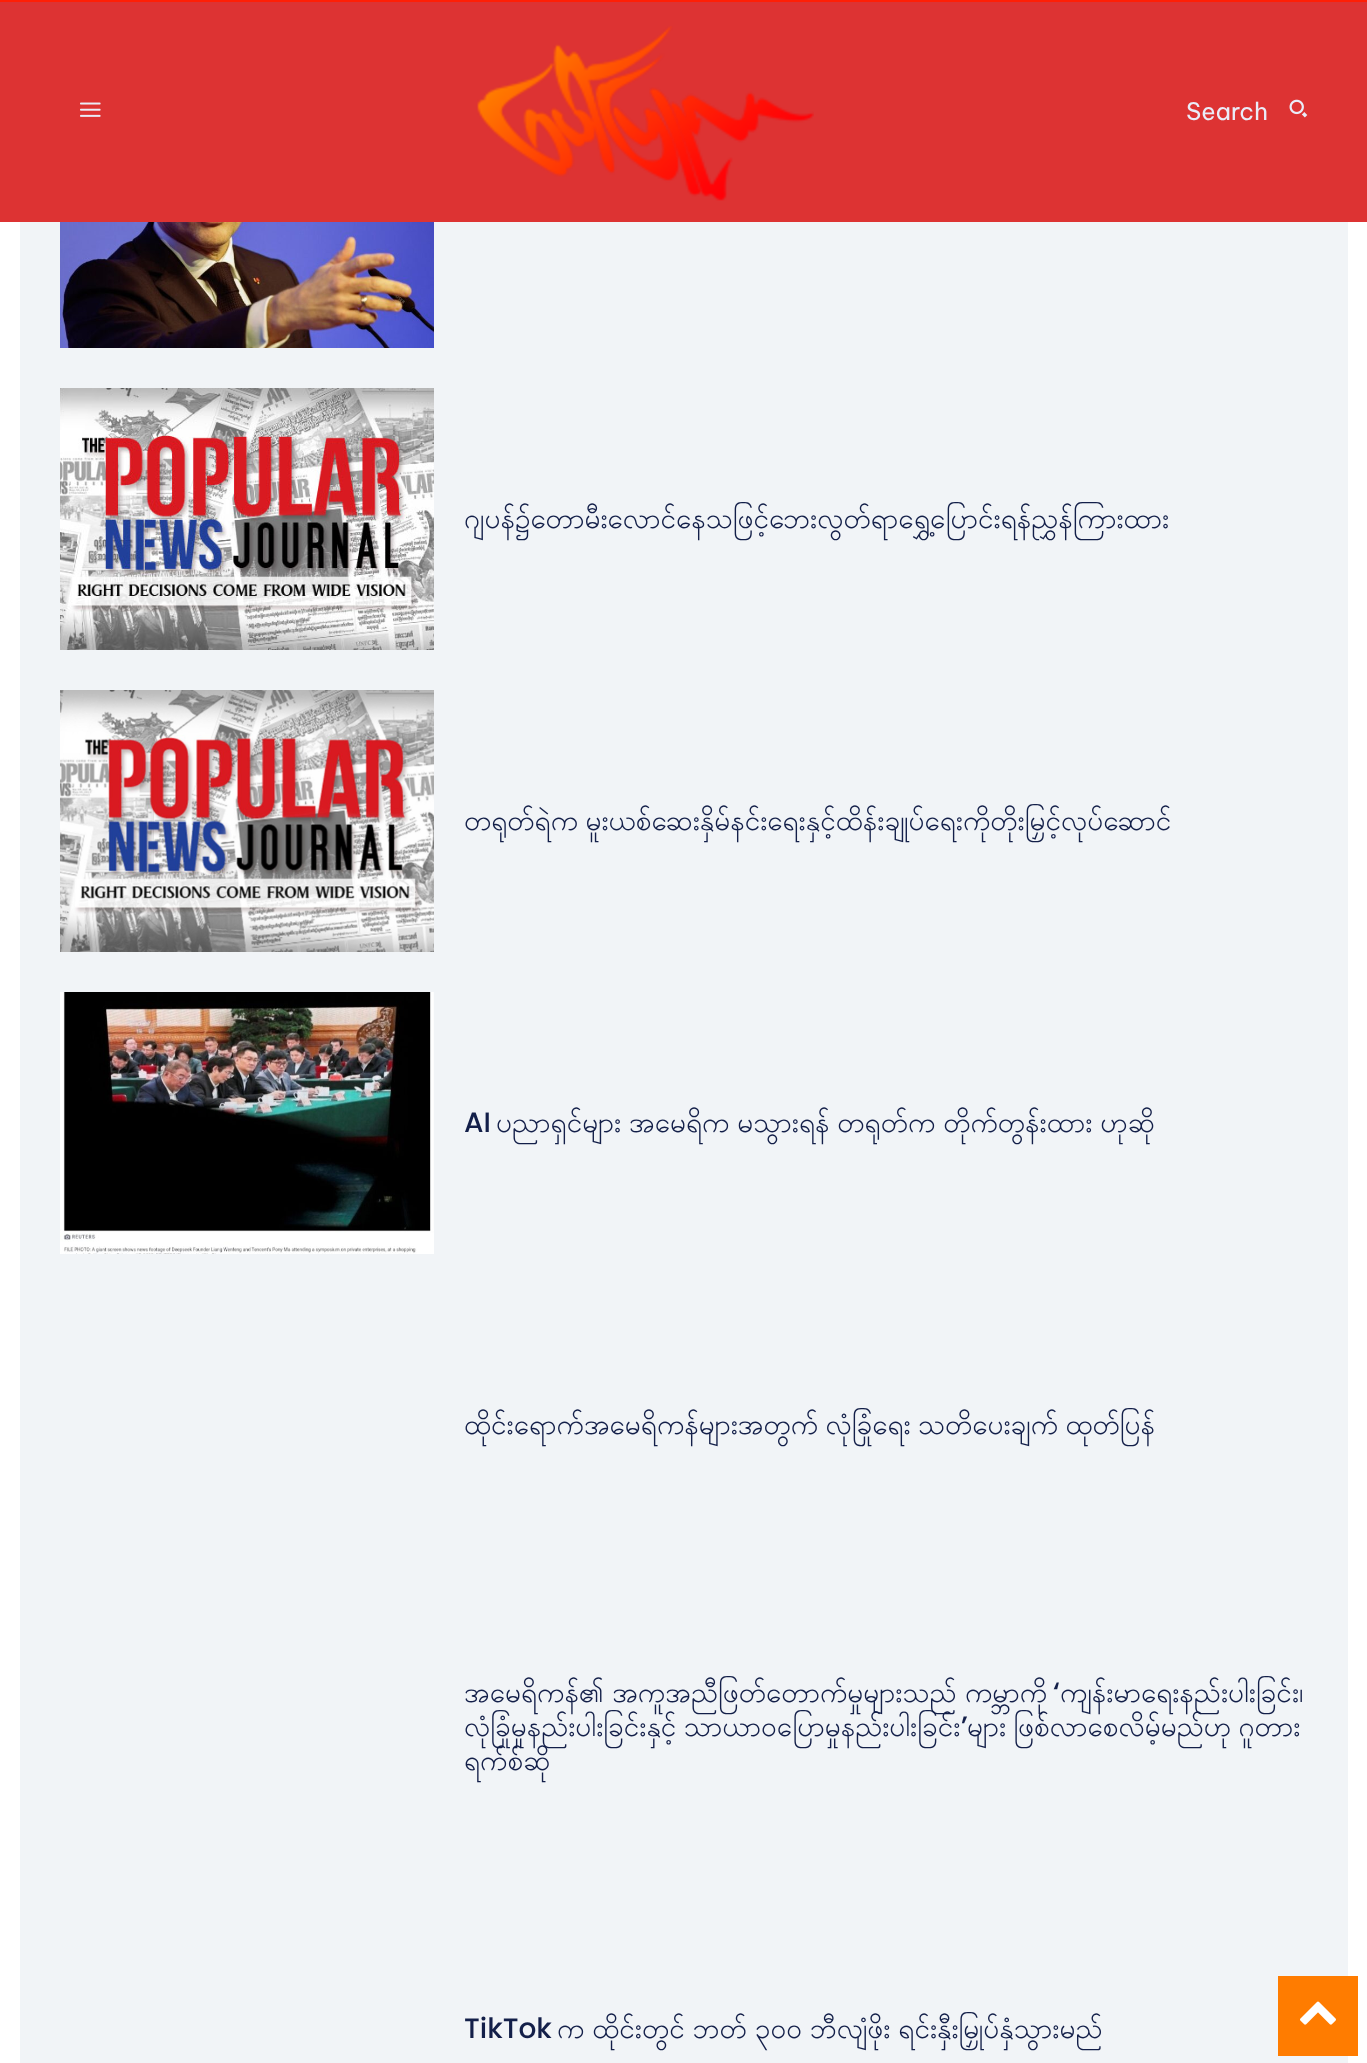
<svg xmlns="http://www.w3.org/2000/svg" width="1367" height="2063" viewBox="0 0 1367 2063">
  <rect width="100%" height="100%" fill="#ffffff"/>
  <rect x="0" y="0" width="1367" height="2" fill="#ff1f05"/>
  <rect x="0" y="2" width="1367" height="220" fill="#dd3333"/>
  <image x="80" y="102" width="21" height="15" href="img1.png"/>
  <image x="477" y="26" width="337" height="175" href="img2.png"/>
  <text x="1186" y="120" font-family="Be Vietnam Pro" font-size="24" fill="#eaecf8">Search</text>
  <image x="1289" y="99" width="19" height="19" href="img3.png"/>
  <rect x="20" y="222" width="1328" height="1841" fill="#f1f4f7"/>
  <image x="60" y="222" width="374" height="126" href="img4.png"/>
  <image x="60" y="388" width="374" height="262" href="img5.png"/>
  <text x="464" y="528" font-family="Padauk" font-size="28" fill="#131f49">ဂျပန်၌တောမီးလောင်နေသဖြင့်ဘေးလွတ်ရာရွှေ့ပြောင်းရန်ညွှန်ကြားထား</text>
  <image x="60" y="690" width="374" height="262" href="img6.png"/>
  <text x="464" y="830" word-spacing="-3" font-family="Padauk" font-size="28" fill="#131f49">တရုတ်ရဲက မူးယစ်ဆေးနှိမ်နင်းရေးနှင့်ထိန်းချုပ်ရေးကိုတိုးမြှင့်လုပ်ဆောင်</text>
  <image x="60" y="992" width="374" height="262" href="img7.png"/>
  <text x="464" y="1132" font-family="Poppins" font-size="28" font-weight="500" fill="#131f49">AI</text>
  <text x="496" y="1132" word-spacing="-2.5" font-family="Padauk" font-size="28" fill="#131f49">ပညာရှင်များ အမေရိက မသွားရန် တရုတ်က တိုက်တွန်းထား ဟုဆို</text>
  <text x="464" y="1434" word-spacing="-3" font-family="Padauk" font-size="28" fill="#131f49">ထိုင်းရောက်အမေရိကန်များအတွက် လုံခြုံရေး သတိပေးချက် ထုတ်ပြန်</text>
  <text x="464" y="1702" word-spacing="-2" font-family="Padauk" font-size="28" fill="#131f49">အမေရိကန်၏ အကူအညီဖြတ်တောက်မှုများသည် ကမ္ဘာကို</text>
  <text x="1053" y="1702" font-family="Poppins" font-size="28" font-weight="500" fill="#131f49">‘</text>
  <text x="1060" y="1702" font-family="Padauk" font-size="28" fill="#131f49">ကျန်းမာရေးနည်းပါးခြင်း၊</text>
  <text x="464" y="1736" word-spacing="-3" font-family="Padauk" font-size="28" fill="#131f49">လုံခြုံမှုနည်းပါးခြင်းနှင့် သာယာဝပြောမှုနည်းပါးခြင်း</text>
  <text x="961" y="1736" font-family="Poppins" font-size="28" font-weight="500" fill="#131f49">’</text>
  <text x="967" y="1736" word-spacing="-3" font-family="Padauk" font-size="28" fill="#131f49">များ ဖြစ်လာစေလိမ့်မည်ဟု ဂူတား</text>
  <text x="464" y="1770" font-family="Padauk" font-size="28" fill="#131f49">ရက်စ်ဆို</text>
  <text x="464" y="2038" font-family="Poppins" font-size="28" font-weight="500" fill="#131f49">TikTok</text>
  <text x="557" y="2038" word-spacing="-2.5" font-family="Padauk" font-size="28" fill="#131f49">က ထိုင်းတွင် ဘတ် ၃၀၀ ဘီလျံဖိုး ရင်းနှီးမြှုပ်နှံသွားမည်</text>
  <rect x="1278" y="1976" width="80" height="80" fill="#ff7c00"/>
  <image x="1300" y="2001" width="36" height="24" href="img8.png"/>
</svg>
